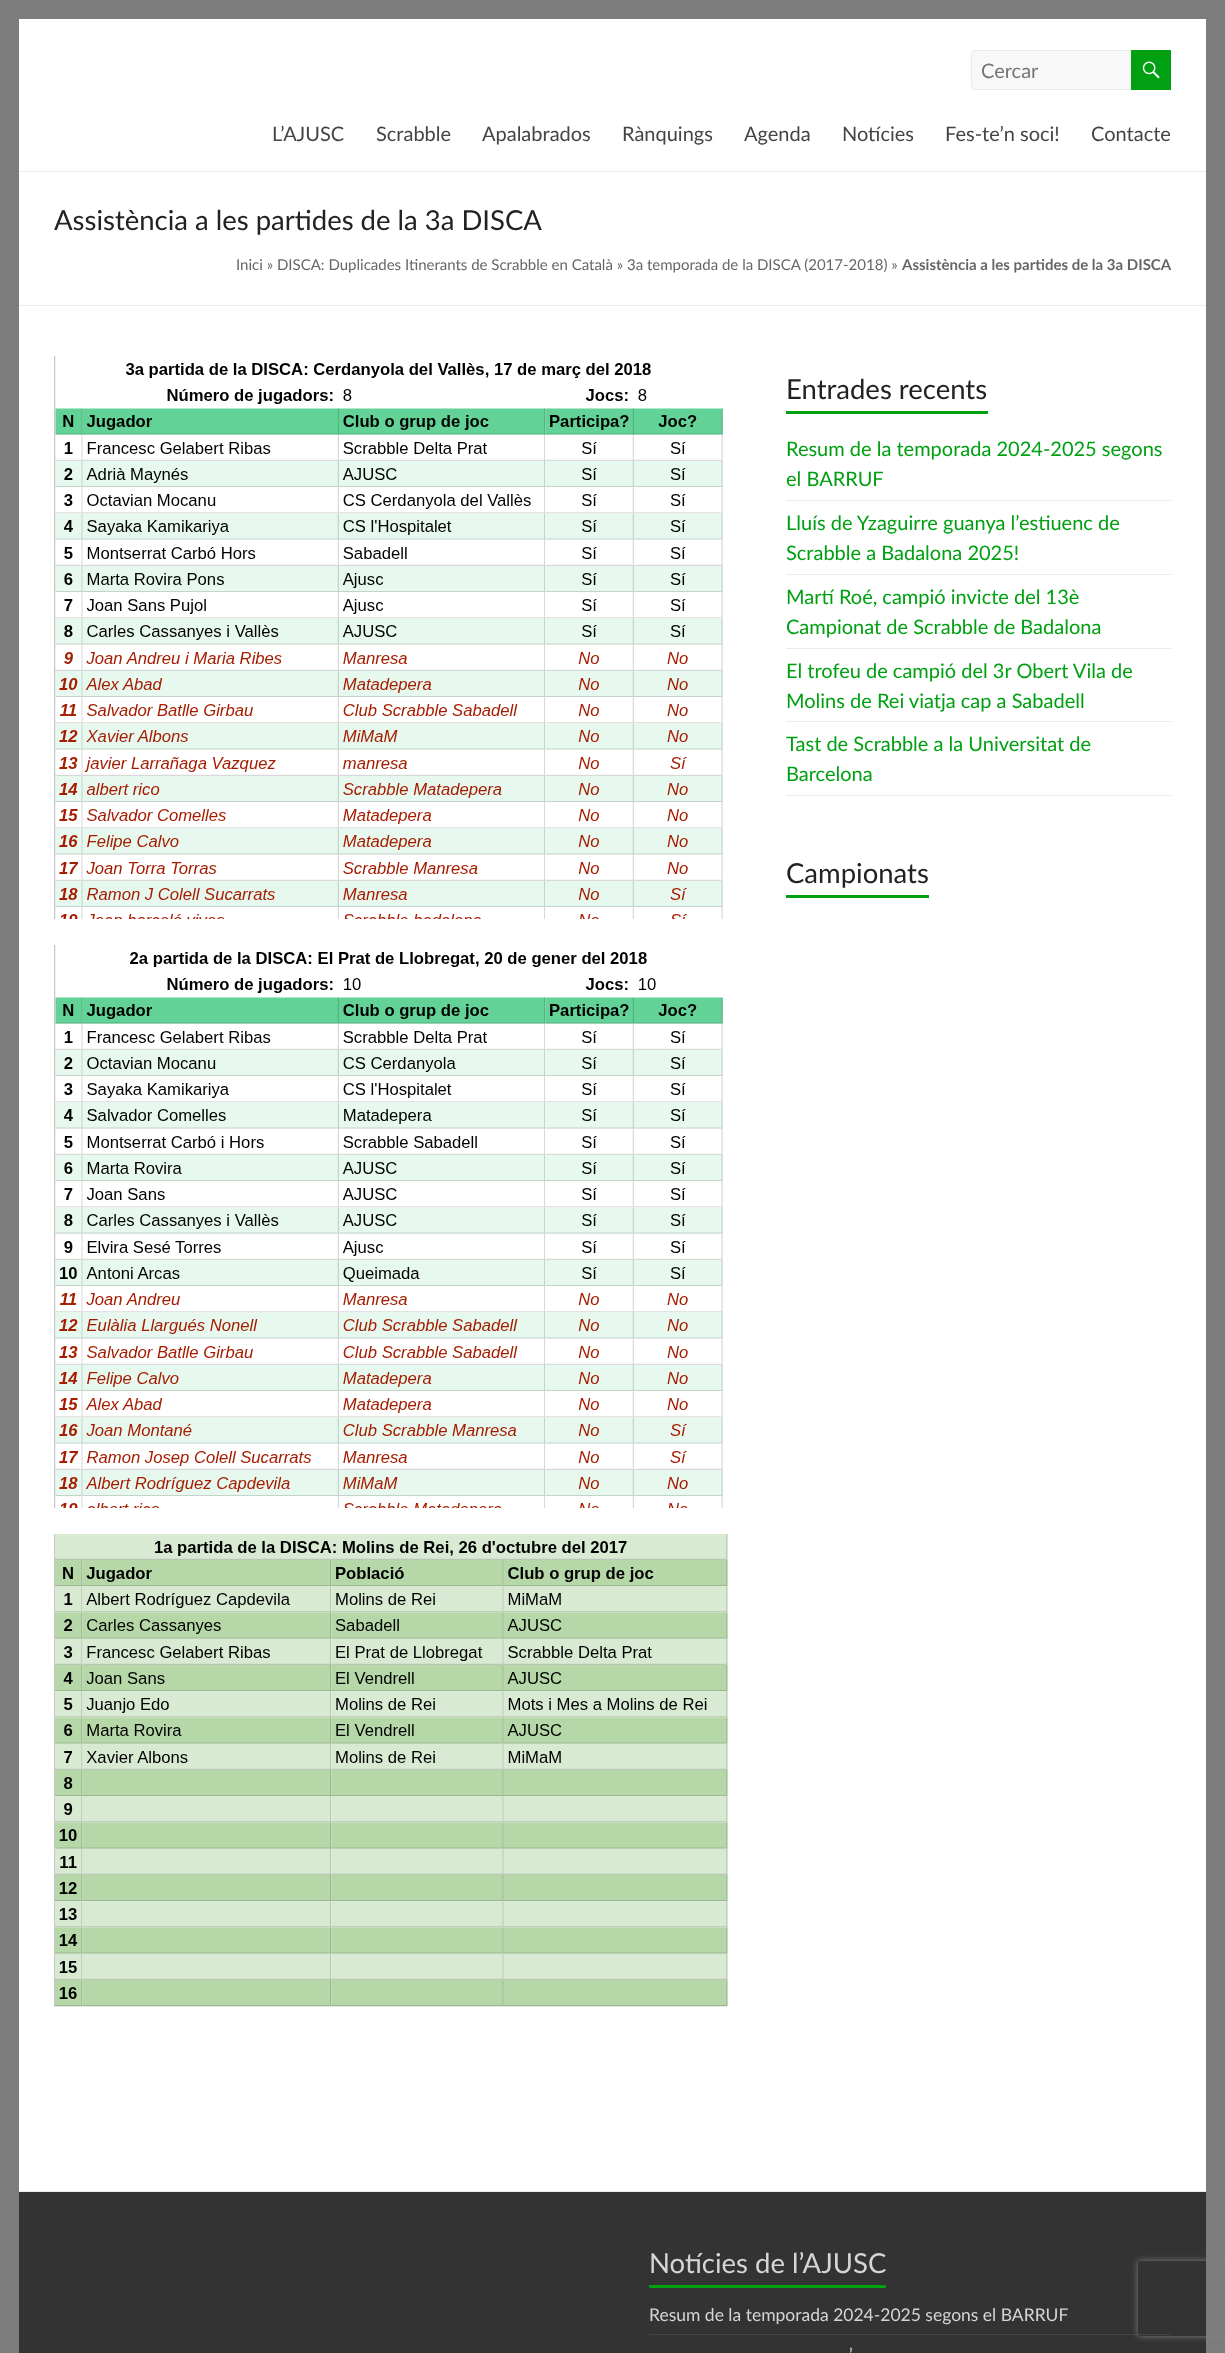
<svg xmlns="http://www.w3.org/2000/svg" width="1225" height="2353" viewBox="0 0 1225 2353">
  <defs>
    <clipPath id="clip1"><path d="M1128 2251H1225V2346H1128ZM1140.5 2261H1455.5C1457 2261 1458 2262 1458 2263.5V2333.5C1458 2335 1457 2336 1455.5 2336H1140.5C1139 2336 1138 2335 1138 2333.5V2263.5C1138 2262 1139 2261 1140.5 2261Z" clip-rule="evenodd"/></clipPath>
    <filter id="blur1" x="-50%" y="-200%" width="200%" height="500%"><feGaussianBlur stdDeviation="3"/></filter>
  </defs>
  <rect width="100%" height="100%" fill="#7c7c7c"/>
  <rect x="19" y="19" width="1187" height="2172" fill="#ffffff"/>
  <rect x="19" y="171" width="1187" height="1" fill="#eaeaea"/>
  <rect x="971.5" y="50.5" width="162" height="39" rx="3.5" fill="#f8f8f8" stroke="#eaeaea"/>
  <text x="981" y="78" font-family="Lato" font-size="20" fill="#757575">Cercar</text>
  <rect x="1131" y="50" width="40" height="40" fill="#00a012"/>
  <image x="1142" y="61" width="18" height="18" href="img1.png"/>
  <text x="272" y="141" font-family="Lato" font-size="20" fill="#444444">L’AJUSC</text>
  <text x="376" y="141" font-family="Lato" font-size="20" fill="#444444">Scrabble</text>
  <text x="482" y="141" font-family="Lato" font-size="20" fill="#444444">Apalabrados</text>
  <text x="622" y="141" font-family="Lato" font-size="20" fill="#444444">Rànquings</text>
  <text x="744" y="141" font-family="Lato" font-size="20" fill="#444444">Agenda</text>
  <text x="842" y="141" font-family="Lato" font-size="20" fill="#444444">Notícies</text>
  <text x="945" y="141" font-family="Lato" font-size="20" fill="#444444">Fes-te’n soci!</text>
  <text x="1091" y="141" font-family="Lato" font-size="20" fill="#444444">Contacte</text>
  <rect x="19" y="305" width="1187" height="1" fill="#eaeaea"/>
  <text x="54" y="230" font-family="Lato" font-size="27.5" fill="#222222">Assistència a les partides de la 3a DISCA</text>
  <text x="236" y="270" font-family="Lato" font-size="15" fill="#666666">Inici » DISCA: Duplicades Itinerants de Scrabble en Català » 3a temporada de la DISCA (2017-2018) »</text>
  <text x="902" y="270" font-family="Lato" font-size="15" font-weight="bold" fill="#666666">Assistència a les partides de la 3a DISCA</text>
  <image x="54" y="356" width="669" height="563" href="img2.png"/>
  <image x="54" y="945" width="669" height="563" href="img3.png"/>
  <image x="54" y="1534" width="674" height="473" href="img4.png"/>
  <text x="786" y="399" font-family="Lato" font-size="27.5" fill="#222222">Entrades recents</text>
  <rect x="786" y="411" width="202" height="3" fill="#00a012"/>
  <rect x="786" y="500" width="385" height="1" fill="#eaeaea"/>
  <text x="786" y="456" font-family="Lato" font-size="20" fill="#00a012">Resum de la temporada 2024-2025 segons</text>
  <text x="786" y="486" font-family="Lato" font-size="20" fill="#00a012">el BARRUF</text>
  <rect x="786" y="574" width="385" height="1" fill="#eaeaea"/>
  <text x="786" y="530" font-family="Lato" font-size="20" fill="#00a012">Lluís de Yzaguirre guanya l’estiuenc de</text>
  <text x="786" y="560" font-family="Lato" font-size="20" fill="#00a012">Scrabble a Badalona 2025!</text>
  <rect x="786" y="648" width="385" height="1" fill="#eaeaea"/>
  <text x="786" y="604" font-family="Lato" font-size="20" fill="#00a012">Martí Roé, campió invicte del 13è</text>
  <text x="786" y="634" font-family="Lato" font-size="20" fill="#00a012">Campionat de Scrabble de Badalona</text>
  <rect x="786" y="721" width="385" height="1" fill="#eaeaea"/>
  <text x="786" y="678" font-family="Lato" font-size="20" fill="#00a012">El trofeu de campió del 3r Obert Vila de</text>
  <text x="786" y="708" font-family="Lato" font-size="20" fill="#00a012">Molins de Rei viatja cap a Sabadell</text>
  <rect x="786" y="795" width="385" height="1" fill="#eaeaea"/>
  <text x="786" y="751" font-family="Lato" font-size="20" fill="#00a012">Tast de Scrabble a la Universitat de</text>
  <text x="786" y="781" font-family="Lato" font-size="20" fill="#00a012">Barcelona</text>
  <text x="786" y="883" font-family="Lato" font-size="27.5" fill="#222222">Campionats</text>
  <rect x="786" y="895" width="143" height="3" fill="#00a012"/>
  <rect x="19" y="2192" width="1187" height="161" fill="#333333"/>
  <rect x="19" y="2191" width="1187" height="1" fill="#eaeaea"/>
  <text x="649" y="2273" font-family="Lato" font-size="27.5" fill="#d5d5d5">Notícies de l’AJUSC</text>
  <rect x="649" y="2285" width="237" height="3" fill="#00a012"/>
  <rect x="649" y="2334" width="522" height="1" fill="#444444"/>
  <text x="649" y="2321" font-family="Lato" font-size="17.5" fill="#d5d5d5">Resum de la temporada 2024-2025 segons el BARRUF</text>
  <text x="849" y="2361" font-family="Lato" font-size="17.5" fill="#d5d5d5">’</text>
  <g clip-path="url(#clip1)">
    <rect x="1138" y="2261" width="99" height="75" rx="2.5" fill="#808080" filter="url(#blur1)"/>
  </g>
</svg>
